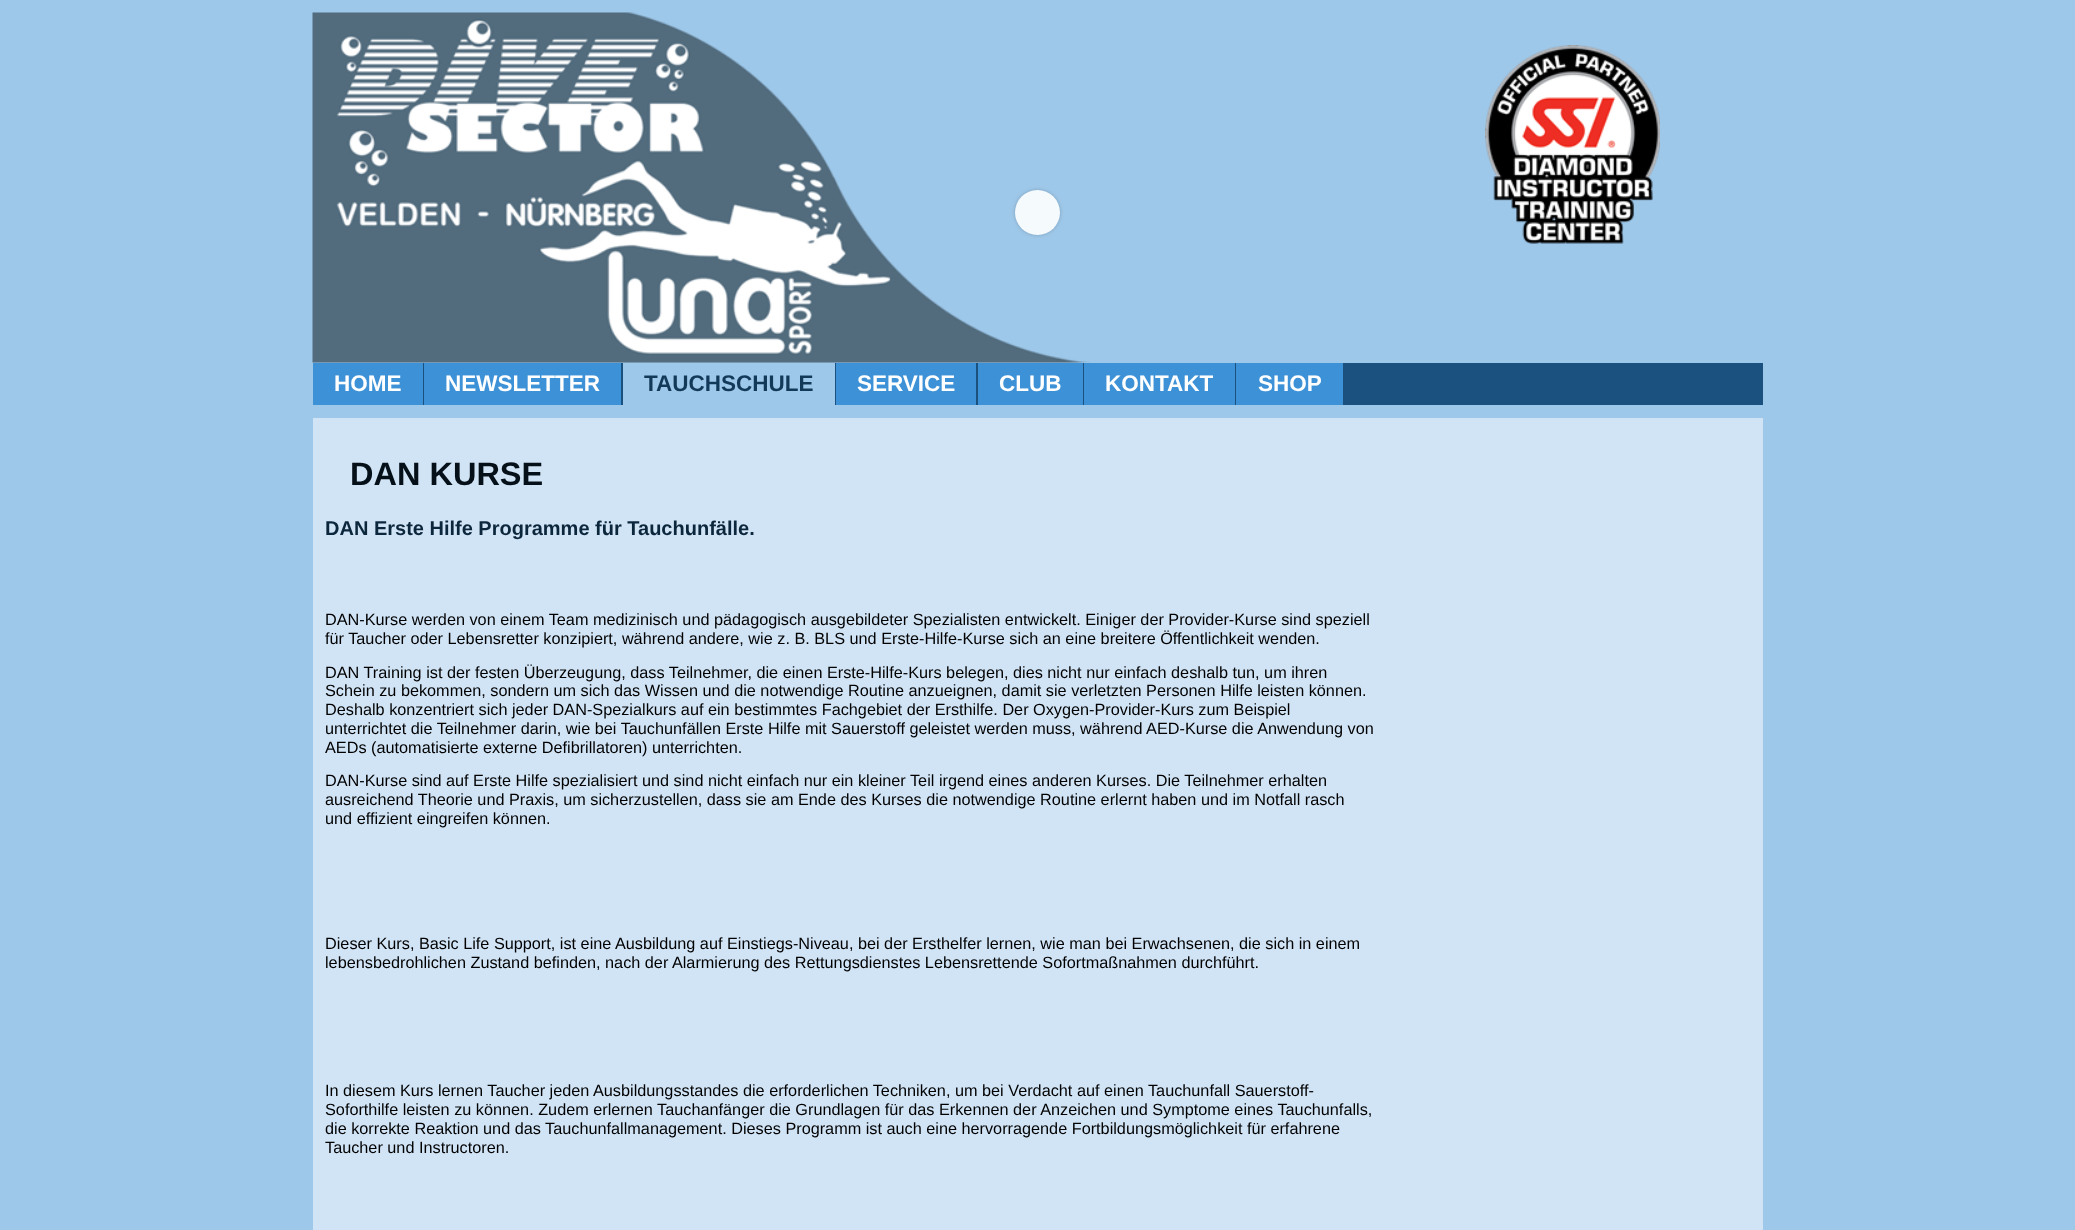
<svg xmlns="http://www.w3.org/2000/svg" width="2075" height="1230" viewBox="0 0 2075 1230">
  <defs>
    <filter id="blur1" x="-50%" y="-200%" width="200%" height="500%"><feGaussianBlur stdDeviation="2"/></filter>
  </defs>
  <rect width="100%" height="100%" fill="#9ec8ea"/>
  <rect x="1015" y="190" width="45" height="45" rx="22.5" fill="#101417" fill-opacity="0.2" filter="url(#blur1)"/>
  <circle cx="1037.5" cy="212.5" r="22.5" fill="#f5fafd"/>
  <image x="312" y="12" width="778" height="351" href="img1.png"/>
  <image x="1485" y="45" width="175" height="199" href="img2.png"/>
  <rect x="423" y="363" width="1340" height="42" fill="#1b517e"/>
  <rect x="313" y="363" width="110" height="42" fill="#3d91d6"/>
  <text x="334" y="391" font-family="Liberation Sans" font-size="22.5" font-weight="bold" fill="#ffffff">HOME</text>
  <rect x="424" y="363" width="197" height="42" fill="#3d91d6"/>
  <text x="445" y="391" font-family="Liberation Sans" font-size="22.5" font-weight="bold" fill="#ffffff">NEWSLETTER</text>
  <rect x="623" y="363" width="212" height="42" fill="#9ec8ea"/>
  <text x="644" y="391" font-family="Liberation Sans" font-size="22.5" font-weight="bold" fill="#133958">TAUCHSCHULE</text>
  <rect x="836" y="363" width="140" height="42" fill="#3d91d6"/>
  <text x="857" y="391" font-family="Liberation Sans" font-size="22.5" font-weight="bold" fill="#ffffff">SERVICE</text>
  <rect x="978" y="363" width="105" height="42" fill="#3d91d6"/>
  <text x="999" y="391" font-family="Liberation Sans" font-size="22.5" font-weight="bold" fill="#ffffff">CLUB</text>
  <rect x="1084" y="363" width="151" height="42" fill="#3d91d6"/>
  <text x="1105" y="391" font-family="Liberation Sans" font-size="22.5" font-weight="bold" fill="#ffffff">KONTAKT</text>
  <rect x="1236" y="363" width="107" height="42" fill="#3d91d6"/>
  <text x="1258" y="391" font-family="Liberation Sans" font-size="22.5" font-weight="bold" fill="#ffffff">SHOP</text>
  <rect x="313" y="418" width="1450" height="812" fill="#d1e4f6"/>
  <text x="350" y="485" font-family="Liberation Sans" font-size="32.5" font-weight="bold" fill="#051019">DAN KURSE</text>
  <text x="325" y="535" font-family="Liberation Sans" font-size="20" font-weight="bold" fill="#0c263b">DAN Erste Hilfe Programme für Tauchunfälle.</text>
  <text x="325" y="625" font-family="Liberation Sans" font-size="16.25" fill="#000000">DAN-Kurse werden von einem Team medizinisch und pädagogisch ausgebildeter Spezialisten entwickelt. Einiger der Provider-Kurse sind speziell</text>
  <text x="325" y="644" font-family="Liberation Sans" font-size="16.25" fill="#000000">für Taucher oder Lebensretter konzipiert, während andere, wie z. B. BLS und Erste-Hilfe-Kurse sich an eine breitere Öffentlichkeit wenden.</text>
  <text x="325" y="678" font-family="Liberation Sans" font-size="16.25" fill="#000000">DAN Training ist der festen Überzeugung, dass Teilnehmer, die einen Erste-Hilfe-Kurs belegen, dies nicht nur einfach deshalb tun, um ihren</text>
  <text x="325" y="696" font-family="Liberation Sans" font-size="16.25" fill="#000000">Schein zu bekommen, sondern um sich das Wissen und die notwendige Routine anzueignen, damit sie verletzten Personen Hilfe leisten können.</text>
  <text x="325" y="715" font-family="Liberation Sans" font-size="16.25" fill="#000000">Deshalb konzentriert sich jeder DAN-Spezialkurs auf ein bestimmtes Fachgebiet der Ersthilfe. Der Oxygen-Provider-Kurs zum Beispiel</text>
  <text x="325" y="734" font-family="Liberation Sans" font-size="16.25" fill="#000000">unterrichtet die Teilnehmer darin, wie bei Tauchunfällen Erste Hilfe mit Sauerstoff geleistet werden muss, während AED-Kurse die Anwendung von</text>
  <text x="325" y="753" font-family="Liberation Sans" font-size="16.25" fill="#000000">AEDs (automatisierte externe Defibrillatoren) unterrichten.</text>
  <text x="325" y="786" font-family="Liberation Sans" font-size="16.25" fill="#000000">DAN-Kurse sind auf Erste Hilfe spezialisiert und sind nicht einfach nur ein kleiner Teil irgend eines anderen Kurses. Die Teilnehmer erhalten</text>
  <text x="325" y="805" font-family="Liberation Sans" font-size="16.25" fill="#000000">ausreichend Theorie und Praxis, um sicherzustellen, dass sie am Ende des Kurses die notwendige Routine erlernt haben und im Notfall rasch</text>
  <text x="325" y="824" font-family="Liberation Sans" font-size="16.25" fill="#000000">und effizient eingreifen können.</text>
  <text x="325" y="949" font-family="Liberation Sans" font-size="16.25" fill="#000000">Dieser Kurs, Basic Life Support, ist eine Ausbildung auf Einstiegs-Niveau, bei der Ersthelfer lernen, wie man bei Erwachsenen, die sich in einem</text>
  <text x="325" y="968" font-family="Liberation Sans" font-size="16.25" fill="#000000">lebensbedrohlichen Zustand befinden, nach der Alarmierung des Rettungsdienstes Lebensrettende Sofortmaßnahmen durchführt.</text>
  <text x="325" y="1096" font-family="Liberation Sans" font-size="16.25" fill="#000000">In diesem Kurs lernen Taucher jeden Ausbildungsstandes die erforderlichen Techniken, um bei Verdacht auf einen Tauchunfall Sauerstoff-</text>
  <text x="325" y="1115" font-family="Liberation Sans" font-size="16.25" fill="#000000">Soforthilfe leisten zu können. Zudem erlernen Tauchanfänger die Grundlagen für das Erkennen der Anzeichen und Symptome eines Tauchunfalls,</text>
  <text x="325" y="1134" font-family="Liberation Sans" font-size="16.25" fill="#000000">die korrekte Reaktion und das Tauchunfallmanagement. Dieses Programm ist auch eine hervorragende Fortbildungsmöglichkeit für erfahrene</text>
  <text x="325" y="1153" font-family="Liberation Sans" font-size="16.25" fill="#000000">Taucher und Instructoren.</text>
</svg>
